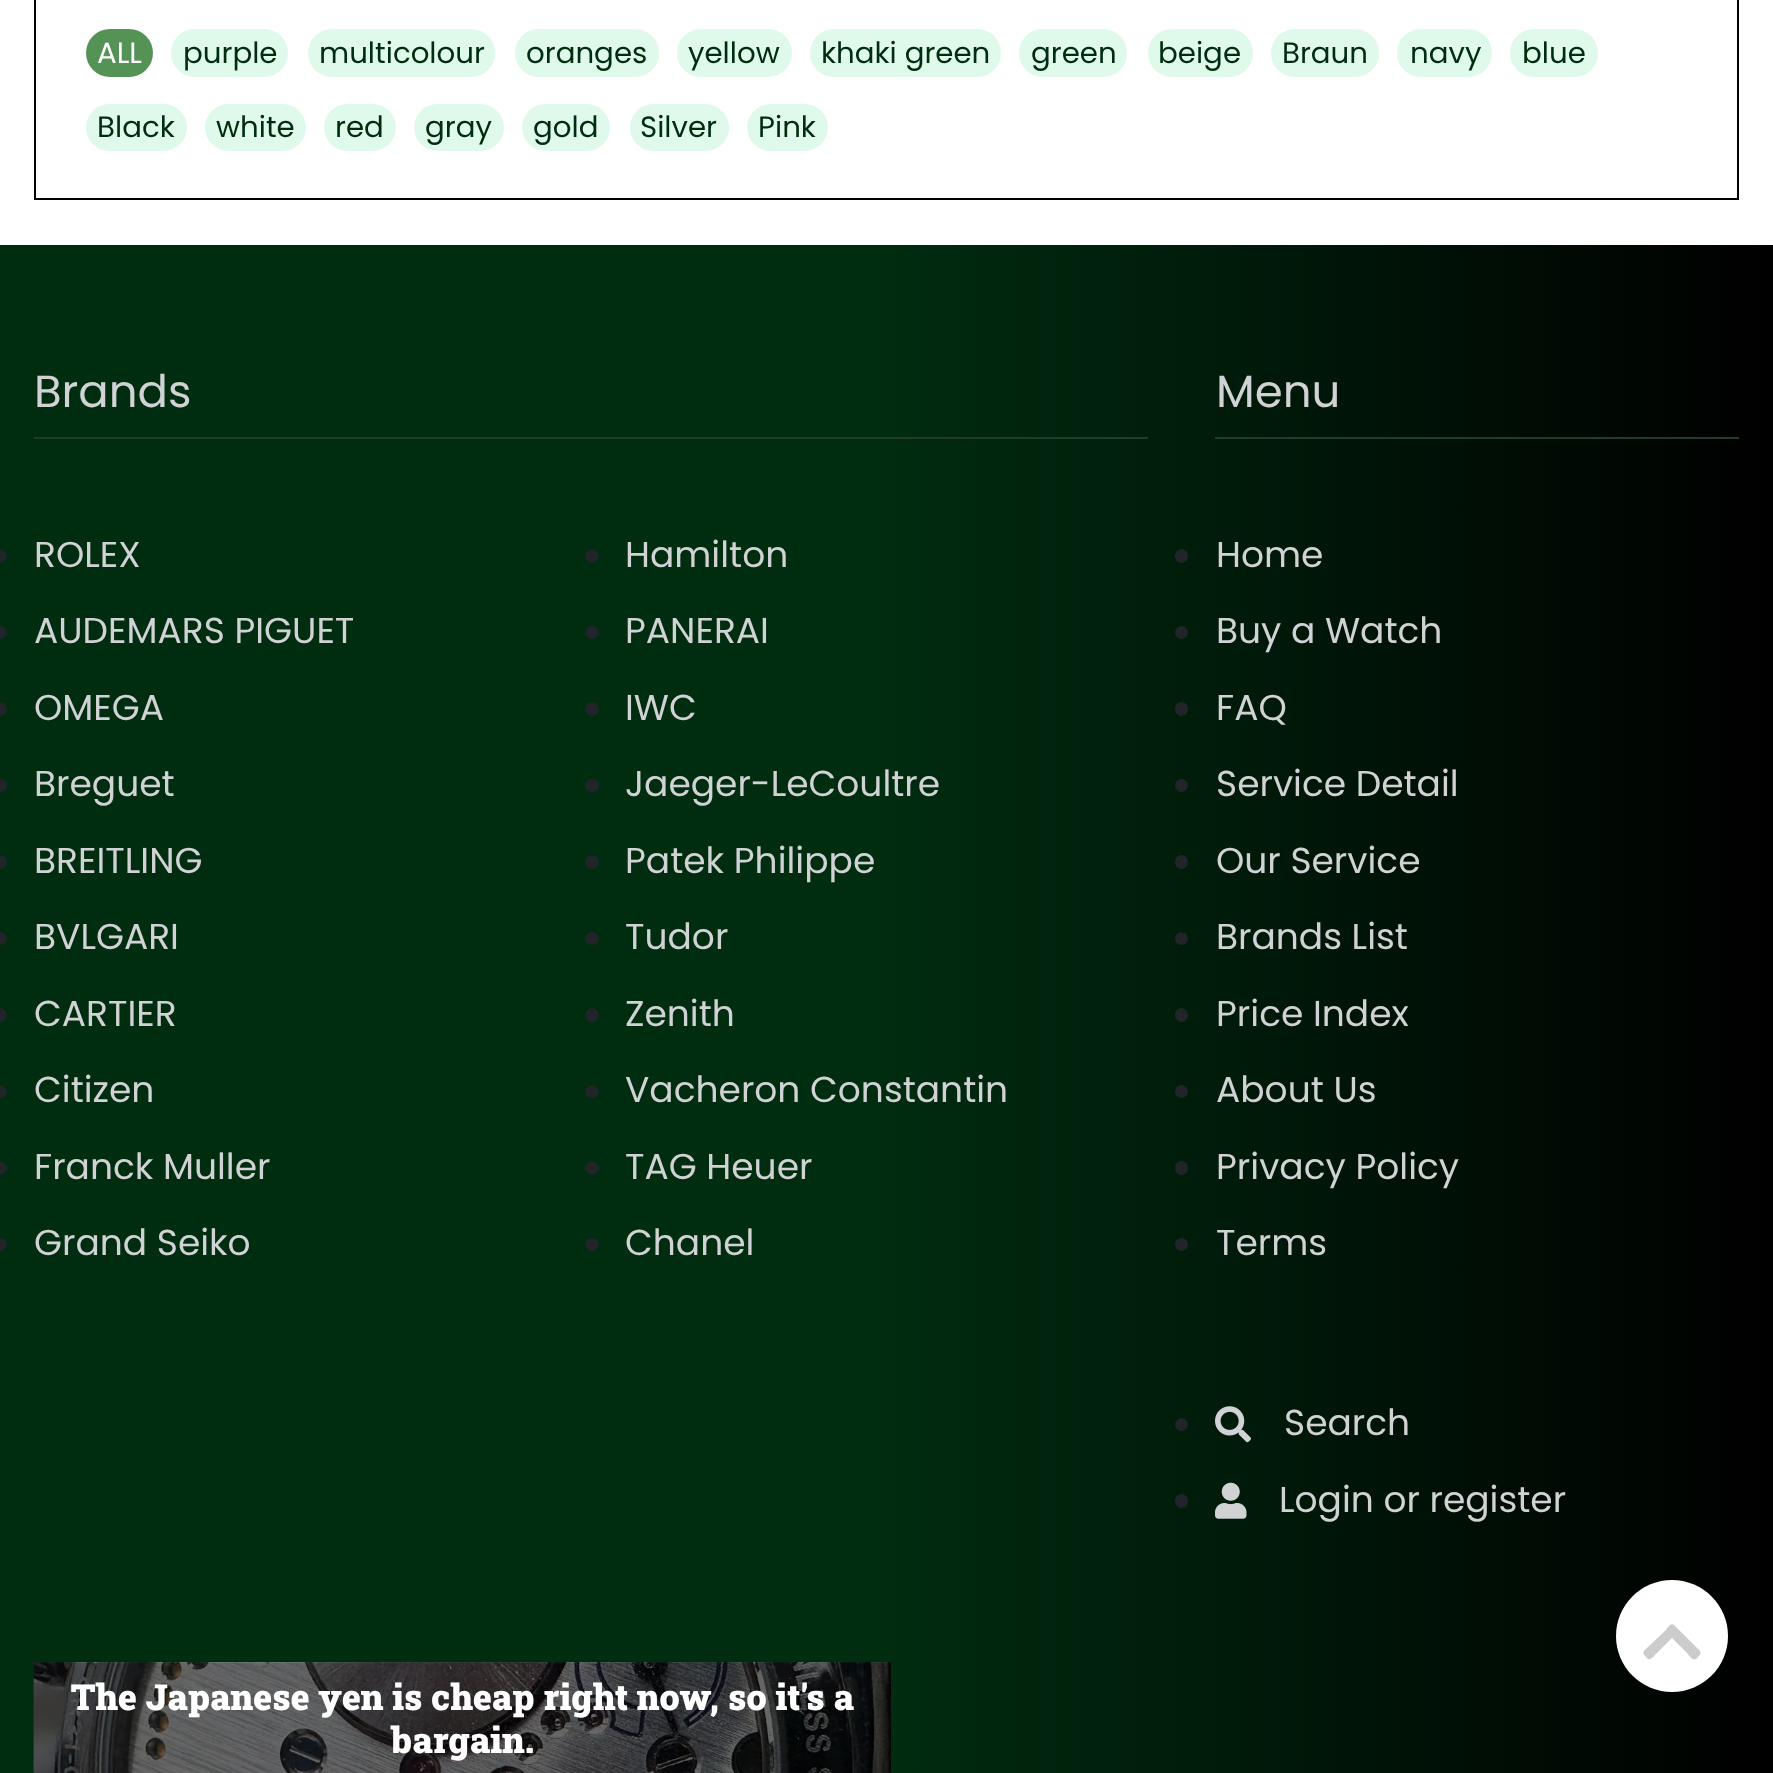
<svg xmlns="http://www.w3.org/2000/svg" width="1773" height="1773" viewBox="0 0 1773 1773">
  <defs>
    <linearGradient id="g1" gradientUnits="userSpaceOnUse" x1="0" y1="1422" x2="1773" y2="1422"><stop offset="0.5" stop-color="#002c10"/><stop offset="1" stop-color="#000000"/></linearGradient>
  </defs>
  <rect width="100%" height="100%" fill="#ffffff"/>
  <rect x="35" y="-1" width="1703" height="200" fill="none" stroke="#000000" stroke-width="2"/>
  <rect x="86" y="29" width="67" height="48" rx="24" fill="#559255"/>
  <text x="97" y="63" font-family="Poppins" font-size="29.25" fill="#ffffff">ALL</text>
  <rect x="171" y="29" width="117" height="48" rx="24" fill="#dffaea"/>
  <text x="183" y="63" font-family="Poppins" font-size="29.25" fill="#002c10">purple</text>
  <rect x="308" y="29" width="187" height="48" rx="24" fill="#dffaea"/>
  <text x="319" y="63" font-family="Poppins" font-size="29.25" fill="#002c10">multicolour</text>
  <rect x="515" y="29" width="144" height="48" rx="24" fill="#dffaea"/>
  <text x="526" y="63" font-family="Poppins" font-size="29.25" fill="#002c10">oranges</text>
  <rect x="677" y="29" width="115" height="48" rx="24" fill="#dffaea"/>
  <text x="688" y="63" font-family="Poppins" font-size="29.25" fill="#002c10">yellow</text>
  <rect x="810" y="29" width="191" height="48" rx="24" fill="#dffaea"/>
  <text x="821" y="63" font-family="Poppins" font-size="29.25" fill="#002c10">khaki green</text>
  <rect x="1019" y="29" width="108" height="48" rx="24" fill="#dffaea"/>
  <text x="1031" y="63" font-family="Poppins" font-size="29.25" fill="#002c10">green</text>
  <rect x="1148" y="29" width="105" height="48" rx="24" fill="#dffaea"/>
  <text x="1158" y="63" font-family="Poppins" font-size="29.25" fill="#002c10">beige</text>
  <rect x="1271" y="29" width="108" height="48" rx="24" fill="#dffaea"/>
  <text x="1282" y="63" font-family="Poppins" font-size="29.25" fill="#002c10">Braun</text>
  <rect x="1397" y="29" width="95" height="48" rx="24" fill="#dffaea"/>
  <text x="1410" y="63" font-family="Poppins" font-size="29.25" fill="#002c10">navy</text>
  <rect x="1510" y="29" width="88" height="48" rx="24" fill="#dffaea"/>
  <text x="1522" y="63" font-family="Poppins" font-size="29.25" fill="#002c10">blue</text>
  <rect x="86" y="104" width="101" height="47" rx="23.5" fill="#dffaea"/>
  <text x="97" y="137" font-family="Poppins" font-size="29.25" fill="#002c10">Black</text>
  <rect x="205" y="104" width="101" height="47" rx="23.5" fill="#dffaea"/>
  <text x="216" y="137" font-family="Poppins" font-size="29.25" fill="#002c10">white</text>
  <rect x="324" y="104" width="72" height="47" rx="23.5" fill="#dffaea"/>
  <text x="335" y="137" font-family="Poppins" font-size="29.25" fill="#002c10">red</text>
  <rect x="414" y="104" width="90" height="47" rx="23.5" fill="#dffaea"/>
  <text x="425" y="137" font-family="Poppins" font-size="29.25" fill="#002c10">gray</text>
  <rect x="522" y="104" width="88" height="47" rx="23.5" fill="#dffaea"/>
  <text x="533" y="137" font-family="Poppins" font-size="29.25" fill="#002c10">gold</text>
  <rect x="630" y="104" width="99" height="47" rx="23.5" fill="#dffaea"/>
  <text x="640" y="137" font-family="Poppins" font-size="29.25" fill="#002c10">Silver</text>
  <rect x="747" y="104" width="81" height="47" rx="23.5" fill="#dffaea"/>
  <text x="758" y="137" font-family="Poppins" font-size="29.25" fill="#002c10">Pink</text>
  <rect x="0" y="245" width="1773" height="1528" fill="url(#g1)"/>
  <rect x="34" y="437" width="1114" height="2" fill="#203c2a"/>
  <text x="34" y="407" font-family="Poppins" font-size="45" fill="#d0d2d3">Brands</text>
  <circle cx="0" cy="556" r="7" fill="#212529"/>
  <text x="34" y="567" font-family="Poppins" font-size="36" fill="#d0d2d3">ROLEX</text>
  <rect x="-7" y="626" width="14" height="13" rx="6.5" fill="#212529"/>
  <text x="34" y="643" font-family="Poppins" font-size="36" fill="#d0d2d3">AUDEMARS PIGUET</text>
  <circle cx="0" cy="709" r="7" fill="#212529"/>
  <text x="34" y="720" font-family="Poppins" font-size="36" fill="#d0d2d3">OMEGA</text>
  <rect x="-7" y="779" width="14" height="13" rx="6.5" fill="#212529"/>
  <text x="34" y="796" font-family="Poppins" font-size="36" fill="#d0d2d3">Breguet</text>
  <circle cx="0" cy="862" r="7" fill="#212529"/>
  <text x="34" y="873" font-family="Poppins" font-size="36" fill="#d0d2d3">BREITLING</text>
  <rect x="-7" y="932" width="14" height="13" rx="6.5" fill="#212529"/>
  <text x="34" y="949" font-family="Poppins" font-size="36" fill="#d0d2d3">BVLGARI</text>
  <circle cx="0" cy="1015" r="7" fill="#212529"/>
  <text x="34" y="1026" font-family="Poppins" font-size="36" fill="#d0d2d3">CARTIER</text>
  <rect x="-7" y="1085" width="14" height="13" rx="6.5" fill="#212529"/>
  <text x="34" y="1102" font-family="Poppins" font-size="36" fill="#d0d2d3">Citizen</text>
  <circle cx="0" cy="1168" r="7" fill="#212529"/>
  <text x="34" y="1179" font-family="Poppins" font-size="36" fill="#d0d2d3">Franck Muller</text>
  <rect x="-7" y="1238" width="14" height="13" rx="6.5" fill="#212529"/>
  <text x="34" y="1255" font-family="Poppins" font-size="36" fill="#d0d2d3">Grand Seiko</text>
  <circle cx="592" cy="556" r="7" fill="#212529"/>
  <text x="625" y="567" font-family="Poppins" font-size="36" fill="#d0d2d3">Hamilton</text>
  <rect x="585" y="626" width="14" height="13" rx="6.5" fill="#212529"/>
  <text x="625" y="643" font-family="Poppins" font-size="36" fill="#d0d2d3">PANERAI</text>
  <circle cx="592" cy="709" r="7" fill="#212529"/>
  <text x="625" y="720" font-family="Poppins" font-size="36" fill="#d0d2d3">IWC</text>
  <rect x="585" y="779" width="14" height="13" rx="6.5" fill="#212529"/>
  <text x="625" y="796" font-family="Poppins" font-size="36" fill="#d0d2d3">Jaeger-LeCoultre</text>
  <circle cx="592" cy="862" r="7" fill="#212529"/>
  <text x="625" y="873" font-family="Poppins" font-size="36" fill="#d0d2d3">Patek Philippe</text>
  <rect x="585" y="932" width="14" height="13" rx="6.5" fill="#212529"/>
  <text x="625" y="949" font-family="Poppins" font-size="36" fill="#d0d2d3">Tudor</text>
  <circle cx="592" cy="1015" r="7" fill="#212529"/>
  <text x="625" y="1026" font-family="Poppins" font-size="36" fill="#d0d2d3">Zenith</text>
  <rect x="585" y="1085" width="14" height="13" rx="6.5" fill="#212529"/>
  <text x="625" y="1102" font-family="Poppins" font-size="36" fill="#d0d2d3">Vacheron Constantin</text>
  <circle cx="592" cy="1168" r="7" fill="#212529"/>
  <text x="625" y="1179" font-family="Poppins" font-size="36" fill="#d0d2d3">TAG Heuer</text>
  <rect x="585" y="1238" width="14" height="13" rx="6.5" fill="#212529"/>
  <text x="625" y="1255" font-family="Poppins" font-size="36" fill="#d0d2d3">Chanel</text>
  <rect x="1215" y="437" width="524" height="2" fill="#203c2a"/>
  <text x="1216" y="407" font-family="Poppins" font-size="45" fill="#d0d2d3">Menu</text>
  <rect x="1175" y="549" width="13" height="14" rx="6.5" fill="#212529"/>
  <text x="1216" y="567" font-family="Poppins" font-size="36" fill="#d0d2d3">Home</text>
  <circle cx="1181.5" cy="632.5" r="6.5" fill="#212529"/>
  <text x="1216" y="643" font-family="Poppins" font-size="36" fill="#d0d2d3">Buy a Watch</text>
  <rect x="1175" y="702" width="13" height="14" rx="6.5" fill="#212529"/>
  <text x="1216" y="720" font-family="Poppins" font-size="36" fill="#d0d2d3">FAQ</text>
  <circle cx="1181.5" cy="785.5" r="6.5" fill="#212529"/>
  <text x="1216" y="796" font-family="Poppins" font-size="36" fill="#d0d2d3">Service Detail</text>
  <rect x="1175" y="855" width="13" height="14" rx="6.5" fill="#212529"/>
  <text x="1216" y="873" font-family="Poppins" font-size="36" fill="#d0d2d3">Our Service</text>
  <circle cx="1181.5" cy="938.5" r="6.5" fill="#212529"/>
  <text x="1216" y="949" font-family="Poppins" font-size="36" fill="#d0d2d3">Brands List</text>
  <rect x="1175" y="1008" width="13" height="14" rx="6.5" fill="#212529"/>
  <text x="1216" y="1026" font-family="Poppins" font-size="36" fill="#d0d2d3">Price Index</text>
  <circle cx="1181.5" cy="1091.5" r="6.5" fill="#212529"/>
  <text x="1216" y="1102" font-family="Poppins" font-size="36" fill="#d0d2d3">About Us</text>
  <rect x="1175" y="1161" width="13" height="14" rx="6.5" fill="#212529"/>
  <text x="1216" y="1179" font-family="Poppins" font-size="36" fill="#d0d2d3">Privacy Policy</text>
  <circle cx="1181.5" cy="1244.5" r="6.5" fill="#212529"/>
  <text x="1216" y="1255" font-family="Poppins" font-size="36" fill="#d0d2d3">Terms</text>
  <circle cx="1181.5" cy="1424.5" r="6.5" fill="#212529"/>
  <image x="1215" y="1406" width="36" height="37" href="img1.png"/>
  <text x="1284" y="1435" font-family="Poppins" font-size="36" fill="#d0d2d3">Search</text>
  <rect x="1175" y="1494" width="13" height="14" rx="6.5" fill="#212529"/>
  <image x="1215" y="1482" width="32" height="37" href="img2.png"/>
  <text x="1279" y="1512" font-family="Poppins" font-size="36" fill="#d0d2d3">Login or register</text>
  <image x="33" y="1662" width="858" height="111" href="img3.png"/>
  <text x="71" y="1710" font-family="Roboto Slab" font-size="36" font-weight="900" fill="#ffffff">The Japanese yen is cheap right now, so it's a</text>
  <text x="391" y="1753" font-family="Roboto Slab" font-size="36" font-weight="900" fill="#ffffff">bargain.</text>
  <circle cx="1672" cy="1636" r="56" fill="#ffffff"/>
  <path d="M1674 1625L1696 1647C1700 1651 1703 1652 1698 1657C1693 1663 1691 1657 1686 1652L1672 1638L1655 1655C1653 1657 1651 1660 1648 1659L1646 1657C1641 1652 1644 1651 1648 1647L1666 1630C1667 1628 1671 1622 1674 1625Z" fill="#cccccc"/>
</svg>
